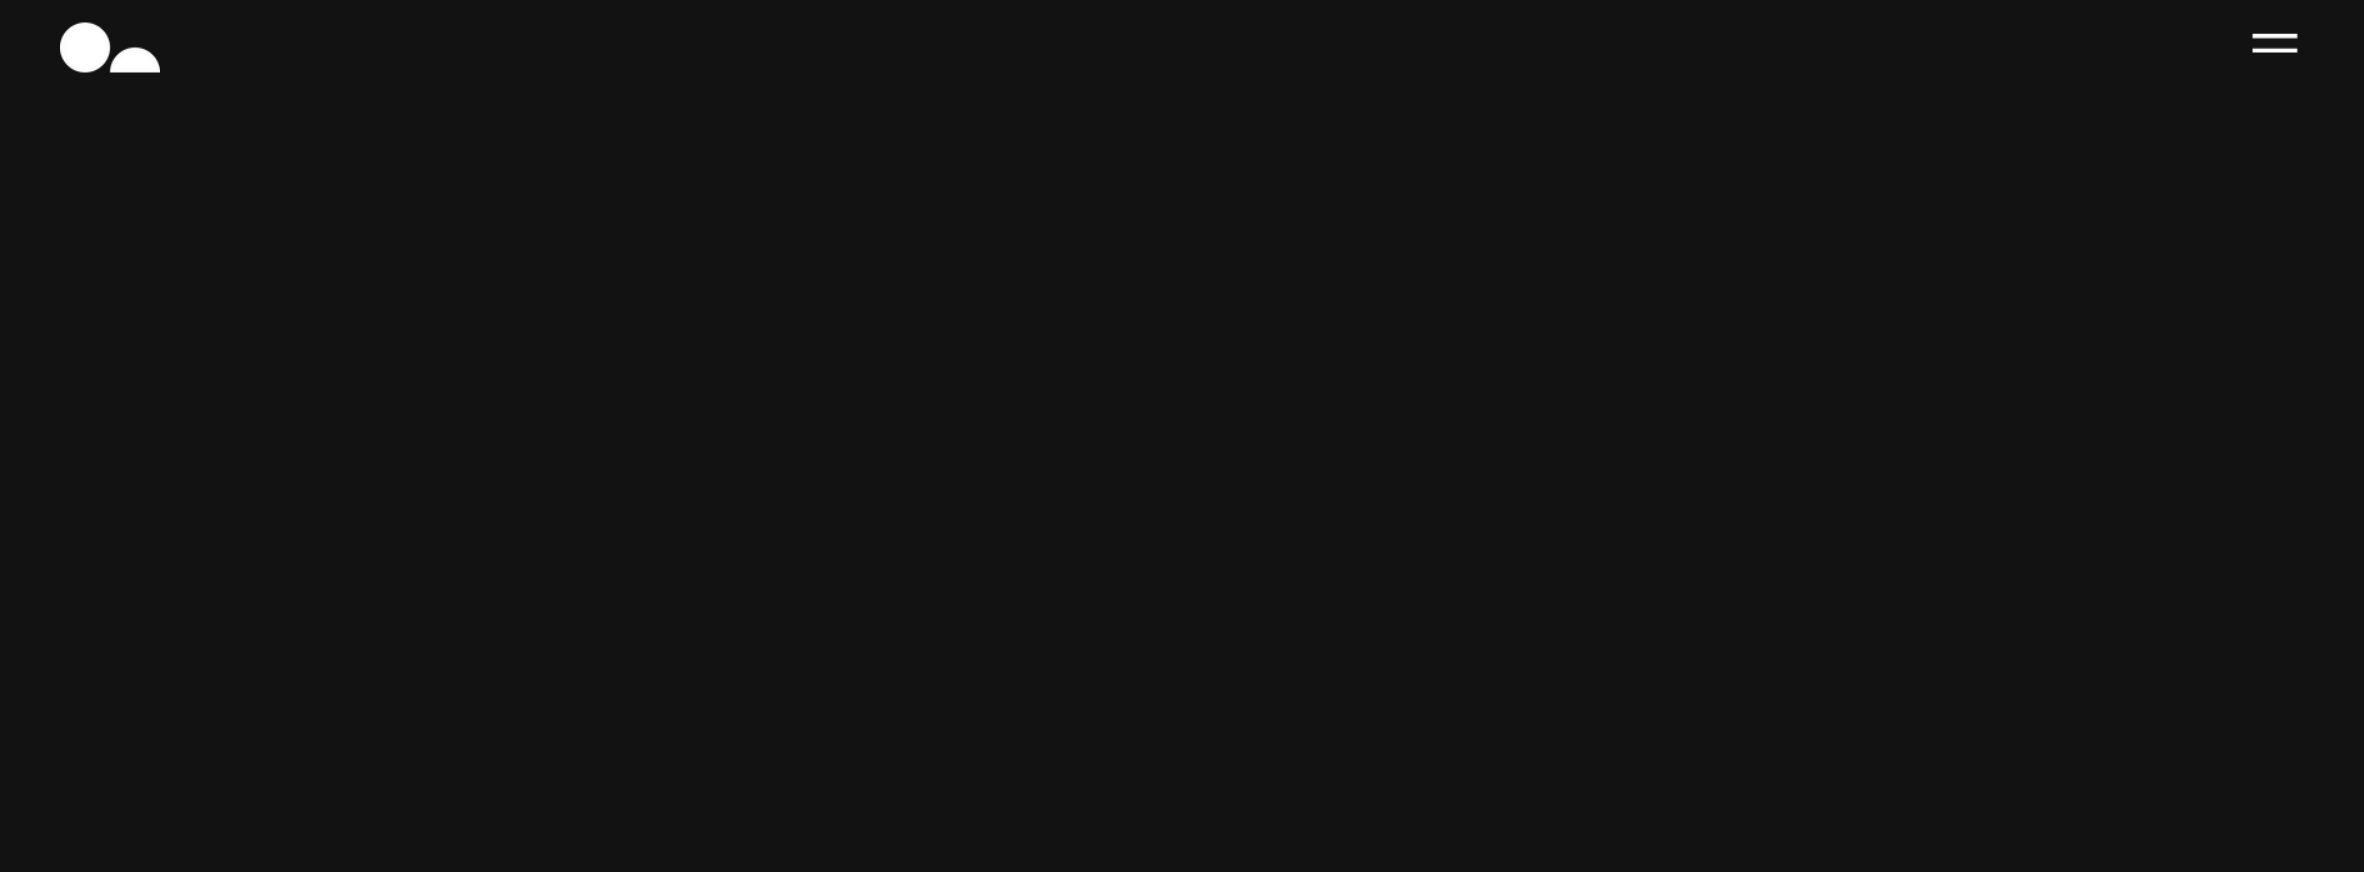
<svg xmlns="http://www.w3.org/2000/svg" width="2364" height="872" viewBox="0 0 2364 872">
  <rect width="100%" height="100%" fill="#121212"/>
  <image x="60" y="22" width="100" height="51" href="img1.png"/>
  <image x="2252" y="33" width="46" height="20" href="img2.png"/>
</svg>
